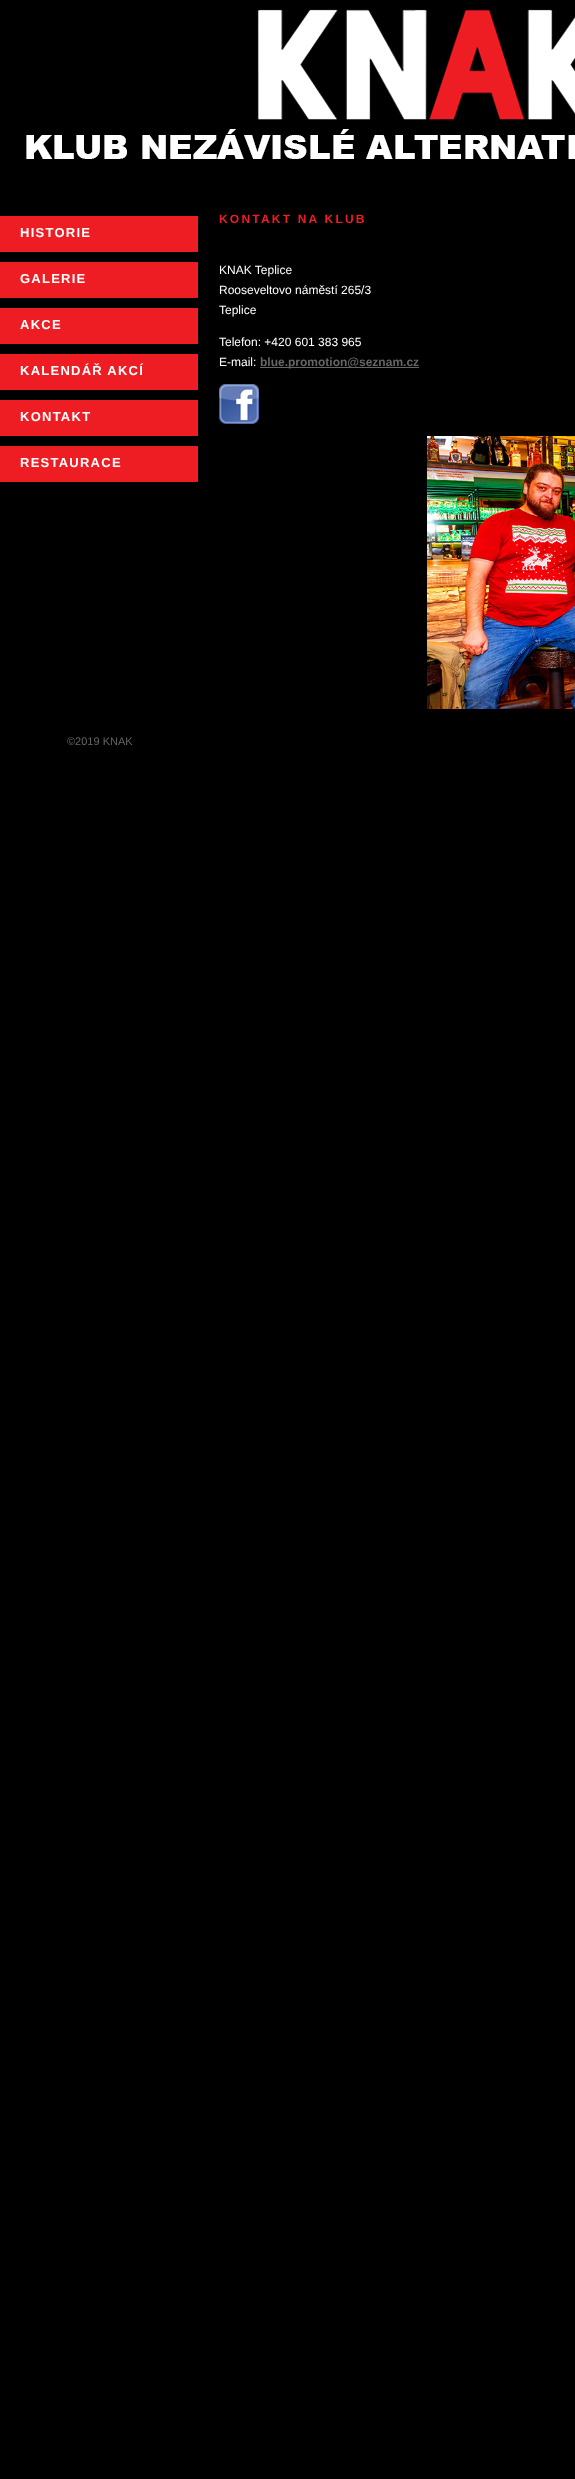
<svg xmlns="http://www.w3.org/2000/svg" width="575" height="2479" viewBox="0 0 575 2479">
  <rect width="100%" height="100%" fill="#000000"/>
  <image x="26" y="9" width="549" height="150" href="img1.png"/>
  <rect x="0" y="216" width="198" height="36" fill="#ee1d23"/>
  <text x="20" y="237" font-family="Liberation Sans" font-size="13" font-weight="bold" letter-spacing="1.25" fill="#ffffff">HISTORIE</text>
  <rect x="0" y="262" width="198" height="36" fill="#ee1d23"/>
  <text x="20" y="283" font-family="Liberation Sans" font-size="13" font-weight="bold" letter-spacing="1.25" fill="#ffffff">GALERIE</text>
  <rect x="0" y="308" width="198" height="36" fill="#ee1d23"/>
  <text x="20" y="329" font-family="Liberation Sans" font-size="13" font-weight="bold" letter-spacing="1.25" fill="#ffffff">AKCE</text>
  <rect x="0" y="354" width="198" height="36" fill="#ee1d23"/>
  <text x="20" y="375" font-family="Liberation Sans" font-size="13" font-weight="bold" letter-spacing="1.25" fill="#ffffff">KALENDÁŘ AKCÍ</text>
  <rect x="0" y="400" width="198" height="36" fill="#ee1d23"/>
  <text x="20" y="421" font-family="Liberation Sans" font-size="13" font-weight="bold" letter-spacing="1.25" fill="#ffffff">KONTAKT</text>
  <rect x="0" y="446" width="198" height="36" fill="#ee1d23"/>
  <text x="20" y="467" font-family="Liberation Sans" font-size="13" font-weight="bold" letter-spacing="1.25" fill="#ffffff">RESTAURACE</text>
  <text x="219" y="223" font-family="Liberation Sans" font-size="12" font-weight="bold" letter-spacing="2.2" fill="#ee1d23">KONTAKT NA KLUB</text>
  <text x="219" y="274" font-family="Liberation Sans" font-size="12" fill="#ffffff">KNAK Teplice</text>
  <text x="219" y="294" font-family="Liberation Sans" font-size="12" fill="#ffffff">Rooseveltovo náměstí 265/3</text>
  <text x="219" y="314" font-family="Liberation Sans" font-size="12" fill="#ffffff">Teplice</text>
  <text x="219" y="346" font-family="Liberation Sans" font-size="12" fill="#ffffff">Telefon: +420 601 383 965</text>
  <text x="219" y="366" font-family="Liberation Sans" font-size="12" fill="#ffffff">E-mail:</text>
  <rect x="260" y="367" width="159" height="1" fill="#666666"/>
  <text x="260" y="366" font-family="Liberation Sans" font-size="12" font-weight="bold" fill="#666666">blue.promotion@seznam.cz</text>
  <image x="219" y="384" width="40" height="40" href="img2.png"/>
  <image x="427" y="436" width="148" height="273" href="img3.png"/>
  <text x="67" y="745" font-family="Liberation Sans" font-size="11" fill="#666666">©2019 KNAK</text>
</svg>
